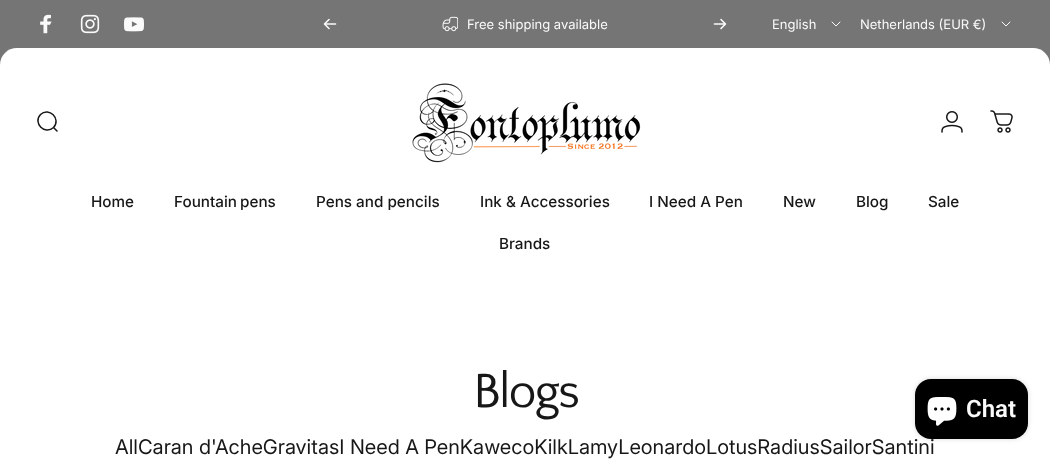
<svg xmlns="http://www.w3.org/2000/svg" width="1050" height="460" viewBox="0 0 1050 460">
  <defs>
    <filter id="blur1" x="-50%" y="-200%" width="200%" height="500%"><feGaussianBlur stdDeviation="2.5"/></filter>
  </defs>
  <rect width="100%" height="100%" fill="#ffffff"/>
  <rect x="0" y="0" width="1050" height="17" fill="#757575"/>
  <path d="M17 0H1033C1042.5 0 1050 7.5 1050 17V65H0V17C0 7.5 7.5 0 17 0Z" fill="#757575"/>
  <image x="40" y="14" width="12" height="20" href="img1.png"/>
  <image x="80" y="14" width="20" height="20" href="img2.png"/>
  <image x="124" y="17" width="20" height="15" href="img3.png"/>
  <path d="M329 19.5L324.5 24M324.5 24L329 28.5M324.5 24H335.5" fill="none" stroke="#fafafa" stroke-width="1.6" stroke-linecap="round" stroke-linejoin="round"/>
  <image x="442" y="16" width="16" height="16" href="img4.png"/>
  <text x="467" y="29" font-family="Inter" font-size="13" fill="#fafafa">Free shipping available</text>
  <path d="M714.5 24H725.5M725.5 24L721 19.5M725.5 24L721 28.5" fill="none" stroke="#fafafa" stroke-width="1.6" stroke-linecap="round" stroke-linejoin="round"/>
  <text x="772" y="29" font-family="Inter" font-size="13" fill="#fafafa">English</text>
  <path d="M832 22L836 26L840 22" fill="none" stroke="#fafafa" stroke-linecap="round" stroke-linejoin="round"/>
  <text x="860" y="29" font-family="Inter" font-size="13" fill="#fafafa">Netherlands (EUR €)</text>
  <path d="M1002 22L1006 26L1010 22" fill="none" stroke="#fafafa" stroke-linecap="round" stroke-linejoin="round"/>
  <path d="M17 48H1033C1042.5 48 1050 55.5 1050 65V296H0V65C0 55.5 7.5 48 17 48Z" fill="#ffffff"/>
  <path d="M57 131L53.5 127.5M53.5 127.5C61.5 119 49 106.5 40.5 114.5C32.5 123 45 135.5 53.5 127.5Z" fill="none" stroke="#171717" stroke-width="1.5" stroke-linecap="round"/>
  <image x="412" y="83" width="229" height="80" href="img5.png"/>
  <image x="941" y="111" width="22" height="22" href="img6.png"/>
  <image x="990" y="110" width="23" height="23" href="img7.png"/>
  <text x="91" y="207" font-family="Inter" font-size="15.25" font-weight="500" fill="#171717">Home</text>
  <text x="174" y="207" word-spacing="-1" font-family="Inter" font-size="15.25" font-weight="500" fill="#171717">Fountain pens</text>
  <text x="316" y="207" font-family="Inter" font-size="15.25" font-weight="500" fill="#171717">Pens and pencils</text>
  <text x="480" y="207" font-family="Inter" font-size="15.25" font-weight="500" fill="#171717">Ink &amp; Accessories</text>
  <text x="649" y="207" font-family="Inter" font-size="15.25" font-weight="500" fill="#171717">I Need A Pen</text>
  <text x="783" y="207" font-family="Inter" font-size="15.25" font-weight="500" fill="#171717">New</text>
  <text x="856" y="207" font-family="Inter" font-size="15.25" font-weight="500" fill="#171717">Blog</text>
  <text x="928" y="207" font-family="Inter" font-size="15.25" font-weight="500" fill="#171717">Sale</text>
  <text x="499" y="249" font-family="Inter" font-size="15.25" font-weight="500" fill="#171717">Brands</text>
  <text x="473" y="407" font-family="Quattrocento Sans" font-size="50" letter-spacing="-2" fill="#171717">Blogs</text>
  <text x="115" y="454" font-family="'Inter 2'" font-size="20.2" fill="#171717">AllCaran d'AcheGravitasI Need A PenKawecoKilkLamyLeonardoLotusRadiusSailorSantini</text>
  <rect x="915" y="379" width="113" height="60" rx="16" fill="#000000" fill-opacity="0.15" filter="url(#blur1)"/>
  <rect x="915" y="379" width="113" height="60" rx="16" fill="#000000"/>
  <image x="927" y="397" width="30" height="29" href="img8.png"/>
  <text x="966" y="417" font-family="Roboto" font-size="24" font-weight="600" fill="#fafafa">Chat</text>
</svg>
